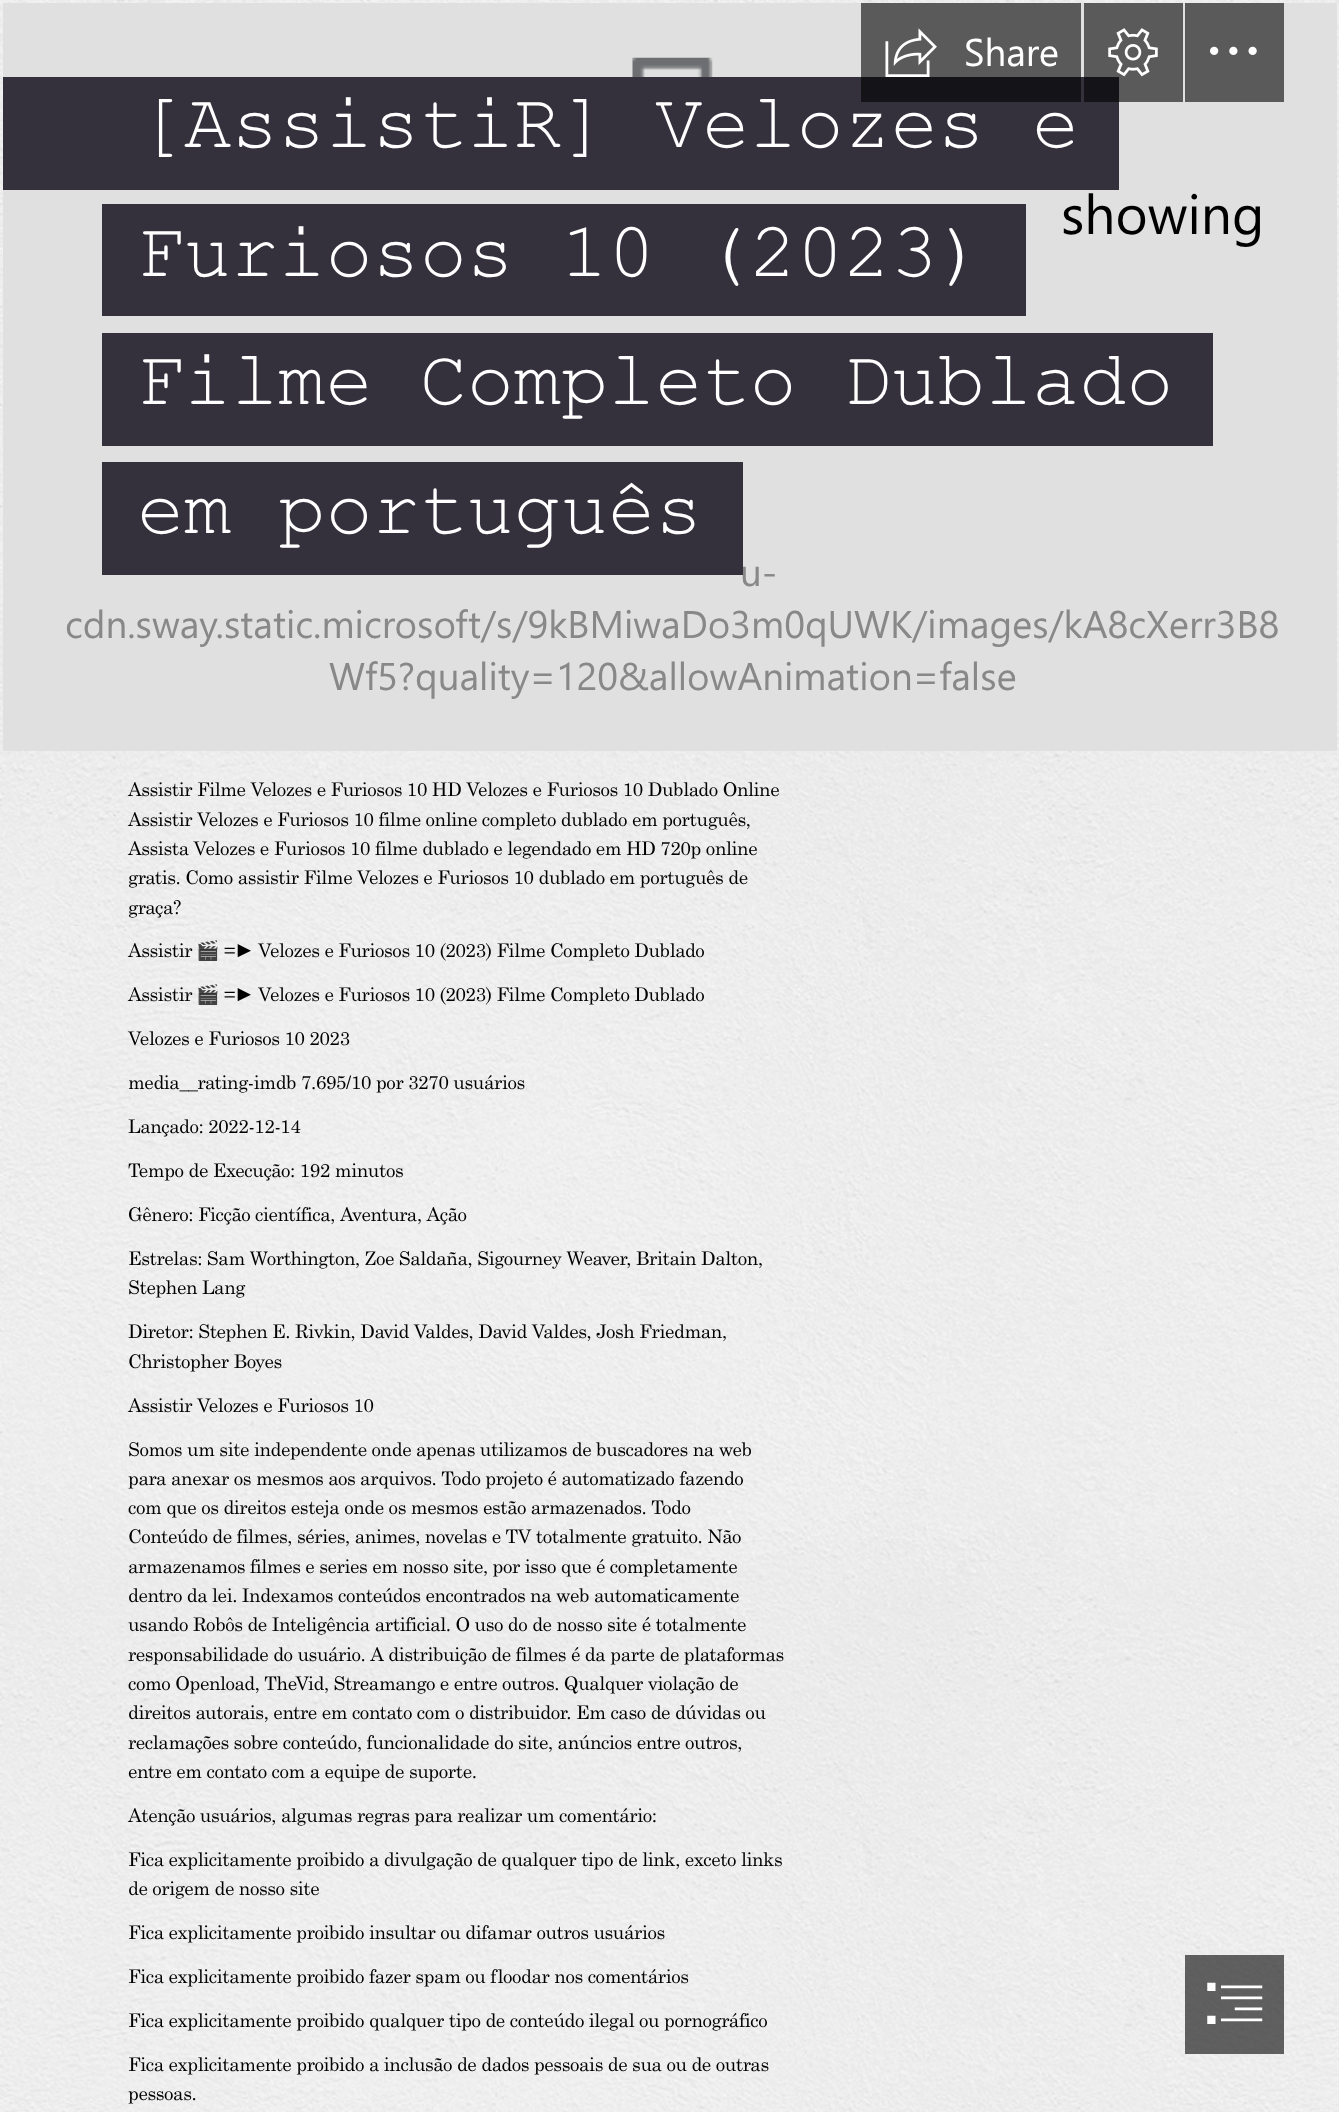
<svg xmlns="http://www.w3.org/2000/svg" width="1339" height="2112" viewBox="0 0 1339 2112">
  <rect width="100%" height="100%" fill="#eaeaea"/>
  <image x="0" y="0" width="1339" height="2112" href="img4.png"/>
  <rect x="3" y="3" width="1334" height="748" fill="#e0e0e0"/>
  <rect x="3" y="77" width="1116" height="113" fill="#34313d"/>
  <text x="137" y="147" font-family="Courier New" font-size="78.5" fill="#ffffff">[AssistiR] Velozes e</text>
  <rect x="861" y="3" width="220" height="99" fill="#000000" fill-opacity="0.6"/>
  <image x="885" y="28" width="52" height="49" href="img1.png"/>
  <text x="964" y="66" font-family="Segoe UI" font-size="38.5" fill="#ffffff">Share</text>
  <rect x="1084" y="3" width="99" height="99" fill="#000000" fill-opacity="0.6"/>
  <image x="1108" y="28" width="50" height="49" href="img2.png"/>
  <rect x="1185" y="3" width="99" height="99" fill="#5a5a5a"/>
  <image x="1210" y="46" width="47" height="9" href="img3.png"/>
  <rect x="102" y="204" width="924" height="112" fill="#34313d"/>
  <text x="137" y="276" font-family="Courier New" font-size="78.5" fill="#ffffff">Furiosos 10 (2023)</text>
  <rect x="102" y="333" width="1111" height="113" fill="#34313d"/>
  <text x="137" y="404" font-family="Courier New" font-size="78.5" fill="#ffffff">Filme Completo Dublado</text>
  <text x="740" y="586" font-family="Segoe UI" font-size="38.5" fill="#888888">u-</text>
  <rect x="102" y="462" width="641" height="113" fill="#34313d"/>
  <text x="137" y="533" font-family="Courier New" font-size="78.5" fill="#ffffff">em português</text>
  <image x="632" y="57" width="81" height="20" href="img5.png"/>
  <text x="1061" y="234" font-family="Segoe UI" font-size="55" fill="#000000">showing</text>
  <text x="65" y="638" font-family="Segoe UI" font-size="38.5" fill="#888888">cdn.sway.static.microsoft/s/9kBMiwaDo3m0qUWK/images/kA8cXerr3B8</text>
  <text x="329" y="690" font-family="Segoe UI" font-size="38.5" fill="#888888">Wf5?quality=120&amp;allowAnimation=false</text>
  <text x="128" y="796" font-family="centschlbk" font-size="18.85" letter-spacing="-0.4" fill="#000000">Assistir Filme Velozes e Furiosos 10 HD Velozes e Furiosos 10 Dublado Online</text>
  <text x="128" y="826" font-family="centschlbk" font-size="18.85" letter-spacing="-0.4" fill="#000000">Assistir Velozes e Furiosos 10 filme online completo dublado em português,</text>
  <text x="128" y="855" font-family="centschlbk" font-size="18.85" letter-spacing="-0.4" fill="#000000">Assista Velozes e Furiosos 10 filme dublado e legendado em HD 720p online</text>
  <text x="128" y="884" font-family="centschlbk" font-size="18.85" letter-spacing="-0.4" fill="#000000">gratis. Como assistir Filme Velozes e Furiosos 10 dublado em português de</text>
  <text x="128" y="914" font-family="centschlbk" font-size="18.85" letter-spacing="-0.4" fill="#000000">graça?</text>
  <text x="128" y="957" font-family="centschlbk" font-size="18.85" letter-spacing="-0.4" fill="#000000">Assistir</text>
  <text x="196" y="957" font-family="Noto Color Emoji" font-size="18.85" letter-spacing="-0.4" fill="#000000">🎬</text>
  <text x="224" y="957" font-family="centschlbk" font-size="18.85" letter-spacing="-0.4" fill="#000000">=► Velozes e Furiosos 10 (2023) Filme Completo Dublado</text>
  <text x="128" y="1001" font-family="centschlbk" font-size="18.85" letter-spacing="-0.4" fill="#000000">Assistir</text>
  <text x="196" y="1001" font-family="Noto Color Emoji" font-size="18.85" letter-spacing="-0.4" fill="#000000">🎬</text>
  <text x="224" y="1001" font-family="centschlbk" font-size="18.85" letter-spacing="-0.4" fill="#000000">=► Velozes e Furiosos 10 (2023) Filme Completo Dublado</text>
  <text x="128" y="1045" font-family="centschlbk" font-size="18.85" letter-spacing="-0.4" fill="#000000">Velozes e Furiosos 10 2023</text>
  <text x="128" y="1089" font-family="centschlbk" font-size="18.85" letter-spacing="-0.4" fill="#000000">media__rating-imdb 7.695/10 por 3270 usuários</text>
  <text x="128" y="1133" font-family="centschlbk" font-size="18.85" letter-spacing="-0.4" fill="#000000">Lançado: 2022-12-14</text>
  <text x="128" y="1177" font-family="centschlbk" font-size="18.85" letter-spacing="-0.4" fill="#000000">Tempo de Execução: 192 minutos</text>
  <text x="128" y="1221" font-family="centschlbk" font-size="18.85" letter-spacing="-0.4" fill="#000000">Gênero: Ficção científica, Aventura, Ação</text>
  <text x="128" y="1265" font-family="centschlbk" font-size="18.85" letter-spacing="-0.4" fill="#000000">Estrelas: Sam Worthington, Zoe Saldaña, Sigourney Weaver, Britain Dalton,</text>
  <text x="128" y="1294" font-family="centschlbk" font-size="18.85" letter-spacing="-0.4" fill="#000000">Stephen Lang</text>
  <text x="128" y="1338" font-family="centschlbk" font-size="18.85" letter-spacing="-0.4" fill="#000000">Diretor: Stephen E. Rivkin, David Valdes, David Valdes, Josh Friedman,</text>
  <text x="128" y="1368" font-family="centschlbk" font-size="18.85" letter-spacing="-0.4" fill="#000000">Christopher Boyes</text>
  <text x="128" y="1412" font-family="centschlbk" font-size="18.85" letter-spacing="-0.4" fill="#000000">Assistir Velozes e Furiosos 10</text>
  <text x="128" y="1456" font-family="centschlbk" font-size="18.85" letter-spacing="-0.4" fill="#000000">Somos um site independente onde apenas utilizamos de buscadores na web</text>
  <text x="128" y="1485" font-family="centschlbk" font-size="18.85" letter-spacing="-0.4" fill="#000000">para anexar os mesmos aos arquivos. Todo projeto é automatizado fazendo</text>
  <text x="128" y="1514" font-family="centschlbk" font-size="18.85" letter-spacing="-0.4" fill="#000000">com que os direitos esteja onde os mesmos estão armazenados. Todo</text>
  <text x="128" y="1543" font-family="centschlbk" font-size="18.85" letter-spacing="-0.4" fill="#000000">Conteúdo de filmes, séries, animes, novelas e TV totalmente gratuito. Não</text>
  <text x="128" y="1573" font-family="centschlbk" font-size="18.85" letter-spacing="-0.4" fill="#000000">armazenamos filmes e series em nosso site, por isso que é completamente</text>
  <text x="128" y="1602" font-family="centschlbk" font-size="18.85" letter-spacing="-0.4" fill="#000000">dentro da lei. Indexamos conteúdos encontrados na web automaticamente</text>
  <text x="128" y="1631" font-family="centschlbk" font-size="18.85" letter-spacing="-0.4" fill="#000000">usando Robôs de Inteligência artificial. O uso do de nosso site é totalmente</text>
  <text x="128" y="1661" font-family="centschlbk" font-size="18.85" letter-spacing="-0.4" fill="#000000">responsabilidade do usuário. A distribuição de filmes é da parte de plataformas</text>
  <text x="128" y="1690" font-family="centschlbk" font-size="18.85" letter-spacing="-0.4" fill="#000000">como Openload, TheVid, Streamango e entre outros. Qualquer violação de</text>
  <text x="128" y="1719" font-family="centschlbk" font-size="18.85" letter-spacing="-0.4" fill="#000000">direitos autorais, entre em contato com o distribuidor. Em caso de dúvidas ou</text>
  <text x="128" y="1749" font-family="centschlbk" font-size="18.85" letter-spacing="-0.4" fill="#000000">reclamações sobre conteúdo, funcionalidade do site, anúncios entre outros,</text>
  <text x="128" y="1778" font-family="centschlbk" font-size="18.85" letter-spacing="-0.4" fill="#000000">entre em contato com a equipe de suporte.</text>
  <text x="128" y="1822" font-family="centschlbk" font-size="18.85" letter-spacing="-0.4" fill="#000000">Atenção usuários, algumas regras para realizar um comentário:</text>
  <text x="128" y="1866" font-family="centschlbk" font-size="18.85" letter-spacing="-0.4" fill="#000000">Fica explicitamente proibido a divulgação de qualquer tipo de link, exceto links</text>
  <text x="128" y="1895" font-family="centschlbk" font-size="18.85" letter-spacing="-0.4" fill="#000000">de origem de nosso site</text>
  <text x="128" y="1939" font-family="centschlbk" font-size="18.85" letter-spacing="-0.4" fill="#000000">Fica explicitamente proibido insultar ou difamar outros usuários</text>
  <text x="128" y="1983" font-family="centschlbk" font-size="18.85" letter-spacing="-0.4" fill="#000000">Fica explicitamente proibido fazer spam ou floodar nos comentários</text>
  <text x="128" y="2027" font-family="centschlbk" font-size="18.85" letter-spacing="-0.4" fill="#000000">Fica explicitamente proibido qualquer tipo de conteúdo ilegal ou pornográfico</text>
  <text x="128" y="2071" font-family="centschlbk" font-size="18.85" letter-spacing="-0.4" fill="#000000">Fica explicitamente proibido a inclusão de dados pessoais de sua ou de outras</text>
  <text x="128" y="2100" font-family="centschlbk" font-size="18.85" letter-spacing="-0.4" fill="#000000">pessoas.</text>
  <rect x="1185" y="1955" width="99" height="99" fill="#000000" fill-opacity="0.6"/>
  <image x="1207" y="1982" width="56" height="42" href="img6.png"/>
</svg>
